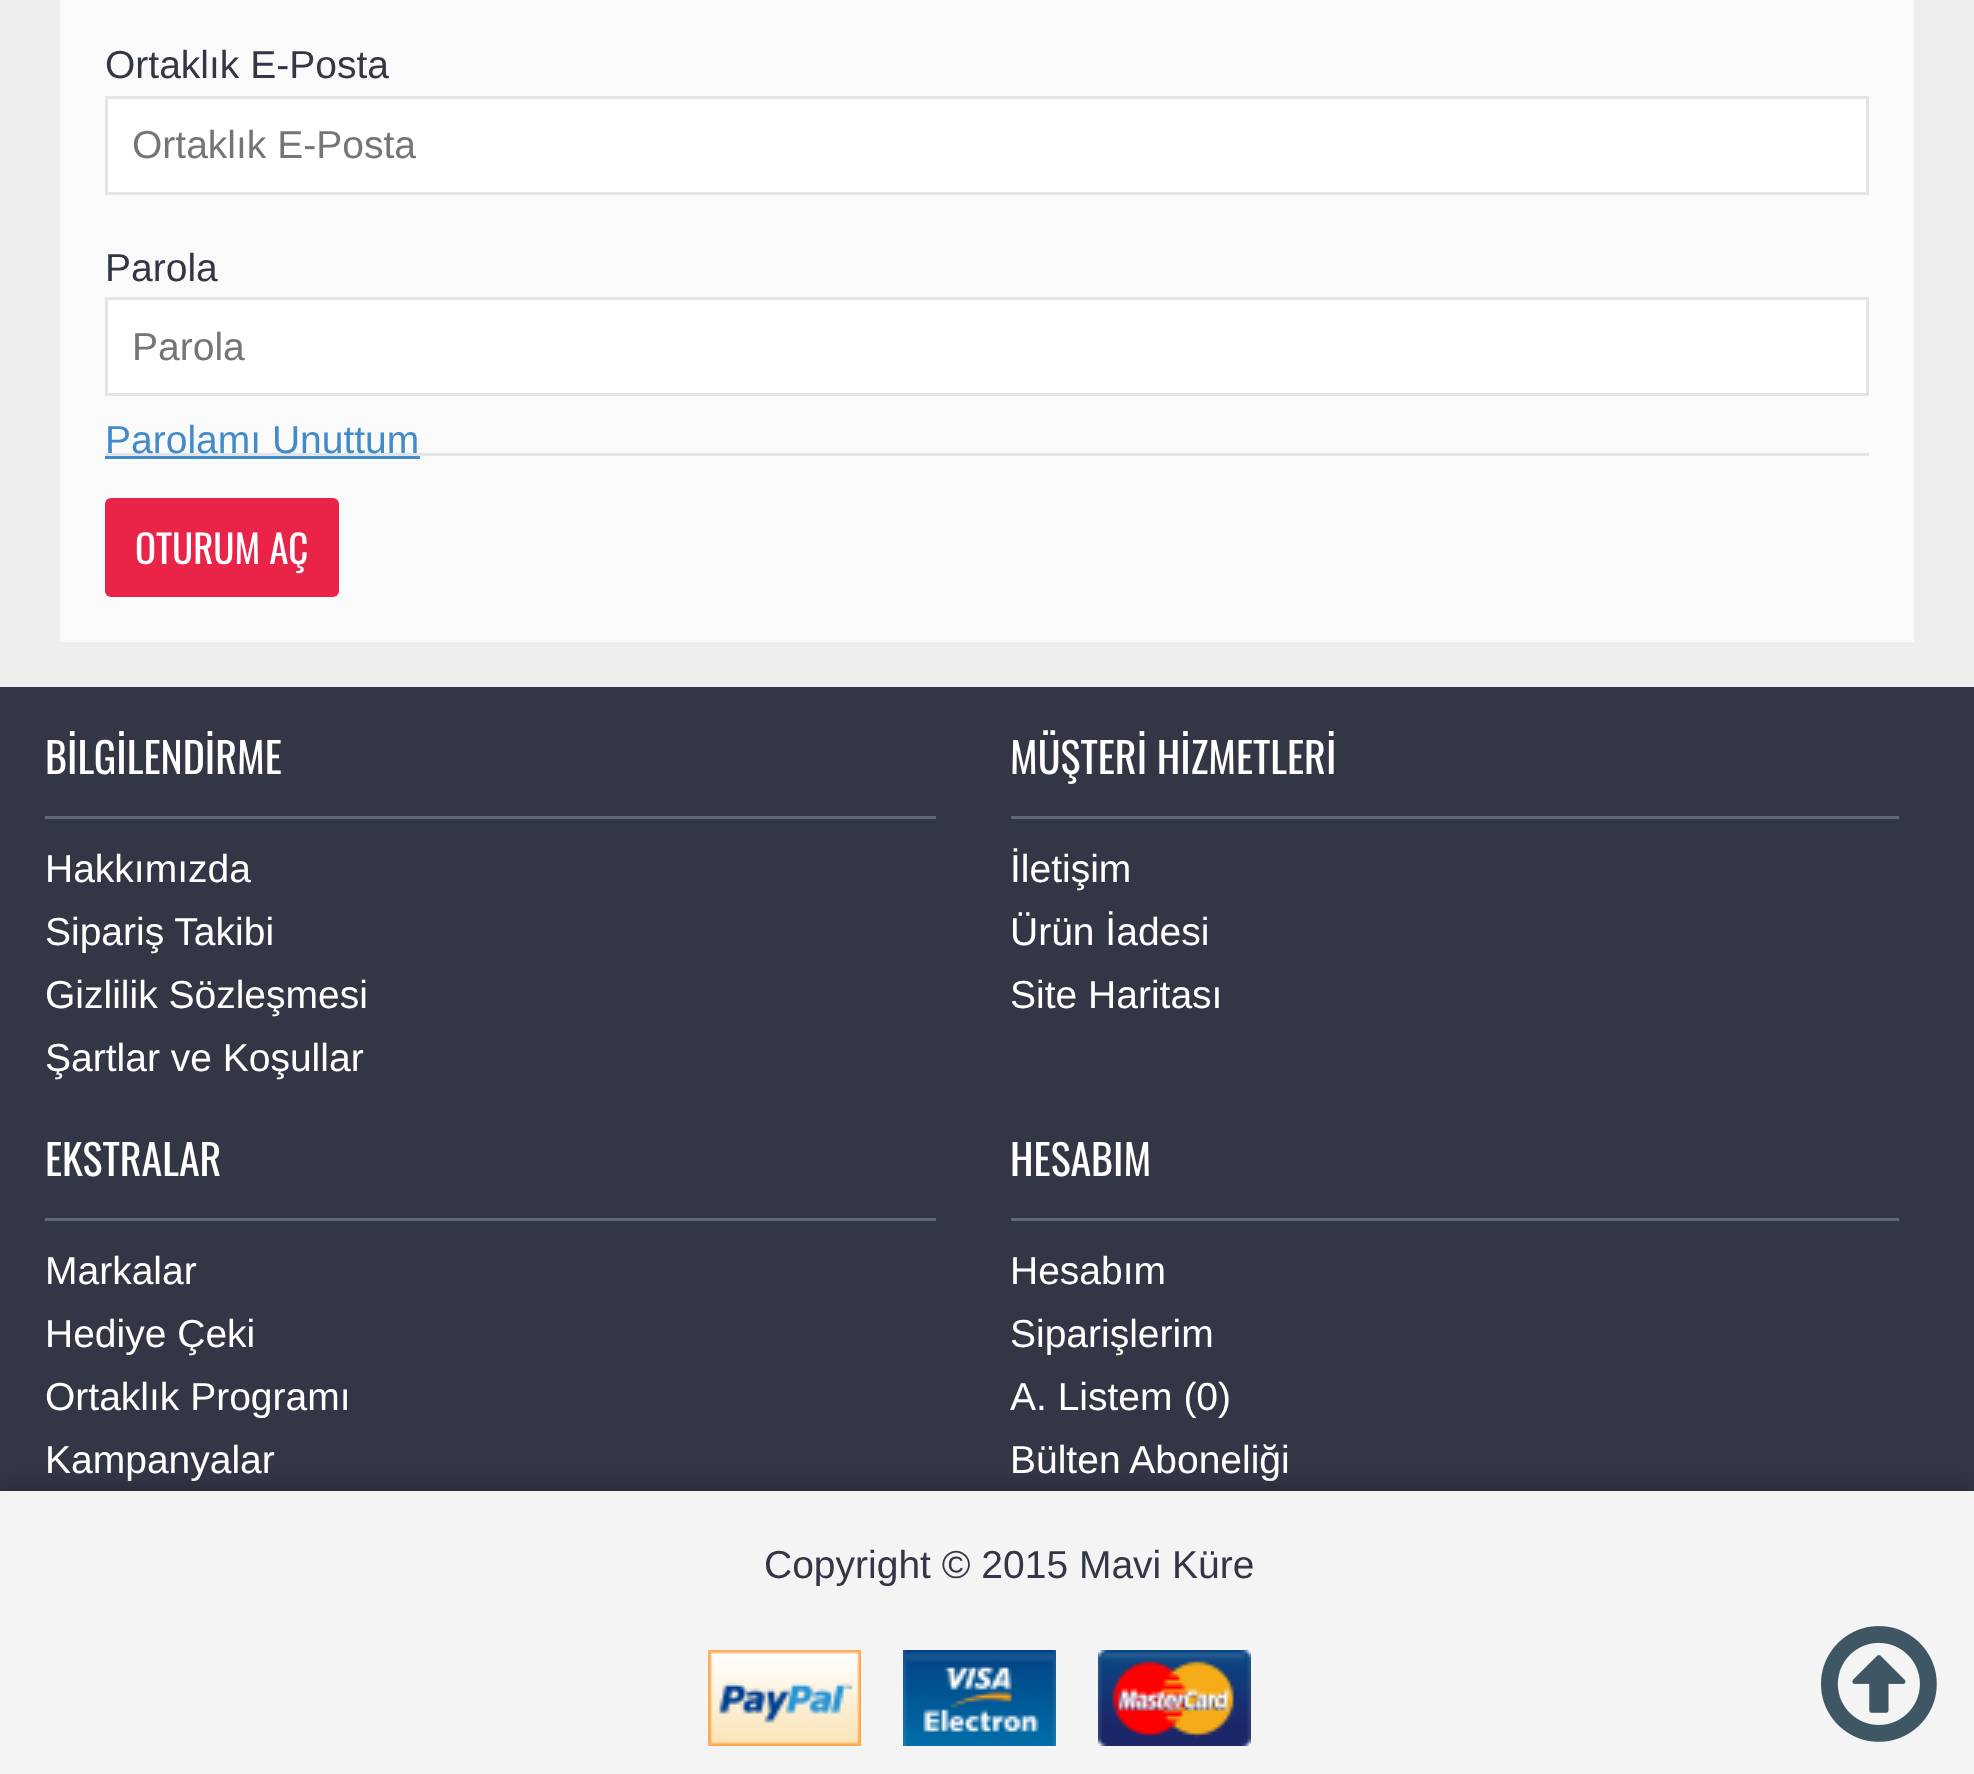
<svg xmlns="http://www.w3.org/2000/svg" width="1974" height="1774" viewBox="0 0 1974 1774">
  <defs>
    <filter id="blur1" x="-50%" y="-200%" width="200%" height="500%"><feGaussianBlur stdDeviation="10.5"/></filter>
  </defs>
  <rect width="100%" height="100%" fill="#333745"/>
  <rect x="0" y="0" width="1974" height="687" fill="#eeeeee"/>
  <rect x="60" y="0" width="1854" height="642" fill="#fafafa"/>
  <text x="105" y="78" font-family="Liberation Sans" font-size="39" fill="#333745">Ortaklık E-Posta</text>
  <rect x="106.5" y="97.5" width="1761" height="96" fill="#ffffff" stroke="#e4e4e4" stroke-width="3"/>
  <text x="132" y="158" font-family="Liberation Sans" font-size="39" fill="#757575">Ortaklık E-Posta</text>
  <text x="105" y="281" font-family="Liberation Sans" font-size="39" fill="#333745">Parola</text>
  <rect x="106.5" y="298.5" width="1761" height="96" fill="#ffffff" stroke="#e4e4e4" stroke-width="3"/>
  <text x="132" y="360" font-family="Liberation Sans" font-size="39" fill="#757575">Parola</text>
  <rect x="105" y="453" width="1764" height="3" fill="#e4e4e4"/>
  <text x="105" y="453" font-family="Liberation Sans" font-size="39" fill="#428bca">Parolamı Unuttum</text>
  <rect x="105" y="456" width="315" height="3" fill="#428bca"/>
  <rect x="105" y="498" width="234" height="99" rx="6" fill="#ea2349"/>
  <text x="135" y="564" font-family="Oswald" font-size="39" fill="#ffffff">OTURUM AÇ</text>
  <rect x="45" y="816" width="891" height="3" fill="#5f6874"/>
  <text x="45" y="774" font-family="Oswald" font-size="42" fill="#ffffff">BİLGİLENDİRME</text>
  <text x="45" y="882" font-family="Liberation Sans" font-size="39" fill="#ffffff">Hakkımızda</text>
  <text x="45" y="945" font-family="Liberation Sans" font-size="39" fill="#ffffff">Sipariş Takibi</text>
  <text x="45" y="1008" font-family="Liberation Sans" font-size="39" fill="#ffffff">Gizlilik Sözleşmesi</text>
  <text x="45" y="1071" font-family="Liberation Sans" font-size="39" fill="#ffffff">Şartlar ve Koşullar</text>
  <rect x="1011" y="816" width="888" height="3" fill="#5f6874"/>
  <text x="1010" y="774" font-family="Oswald" font-size="42" fill="#ffffff">MÜŞTERİ HİZMETLERİ</text>
  <text x="1010" y="882" font-family="Liberation Sans" font-size="39" fill="#ffffff">İletişim</text>
  <text x="1010" y="945" font-family="Liberation Sans" font-size="39" fill="#ffffff">Ürün İadesi</text>
  <text x="1010" y="1008" font-family="Liberation Sans" font-size="39" fill="#ffffff">Site Haritası</text>
  <rect x="45" y="1218" width="891" height="3" fill="#5f6874"/>
  <text x="45" y="1176" font-family="Oswald" font-size="42" fill="#ffffff">EKSTRALAR</text>
  <text x="45" y="1284" font-family="Liberation Sans" font-size="39" fill="#ffffff">Markalar</text>
  <text x="45" y="1347" font-family="Liberation Sans" font-size="39" fill="#ffffff">Hediye Çeki</text>
  <text x="45" y="1410" font-family="Liberation Sans" font-size="39" fill="#ffffff">Ortaklık Programı</text>
  <text x="45" y="1473" font-family="Liberation Sans" font-size="39" fill="#ffffff">Kampanyalar</text>
  <rect x="1011" y="1218" width="888" height="3" fill="#5f6874"/>
  <text x="1010" y="1176" font-family="Oswald" font-size="42" fill="#ffffff">HESABIM</text>
  <text x="1010" y="1284" font-family="Liberation Sans" font-size="39" fill="#ffffff">Hesabım</text>
  <text x="1010" y="1347" font-family="Liberation Sans" font-size="39" fill="#ffffff">Siparişlerim</text>
  <text x="1010" y="1410" font-family="Liberation Sans" font-size="39" fill="#ffffff">A. Listem (0)</text>
  <text x="1010" y="1473" font-family="Liberation Sans" font-size="39" fill="#ffffff">Bülten Aboneliği</text>
  <rect x="0" y="1491" width="1974" height="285" fill="#000000" fill-opacity="0.4" filter="url(#blur1)"/>
  <rect x="0" y="1491" width="1974" height="283" fill="#f4f4f4"/>
  <text x="764" y="1578" font-family="Liberation Sans" font-size="39" fill="#333745">Copyright © 2015 Mavi Küre</text>
  <image x="708" y="1650" width="153" height="96" href="img1.png"/>
  <image x="903" y="1650" width="153" height="96" href="img2.png"/>
  <image x="1098" y="1650" width="153" height="96" href="img3.png"/>
  <image x="1821" y="1626" width="116" height="116" href="img4.png"/>
</svg>
